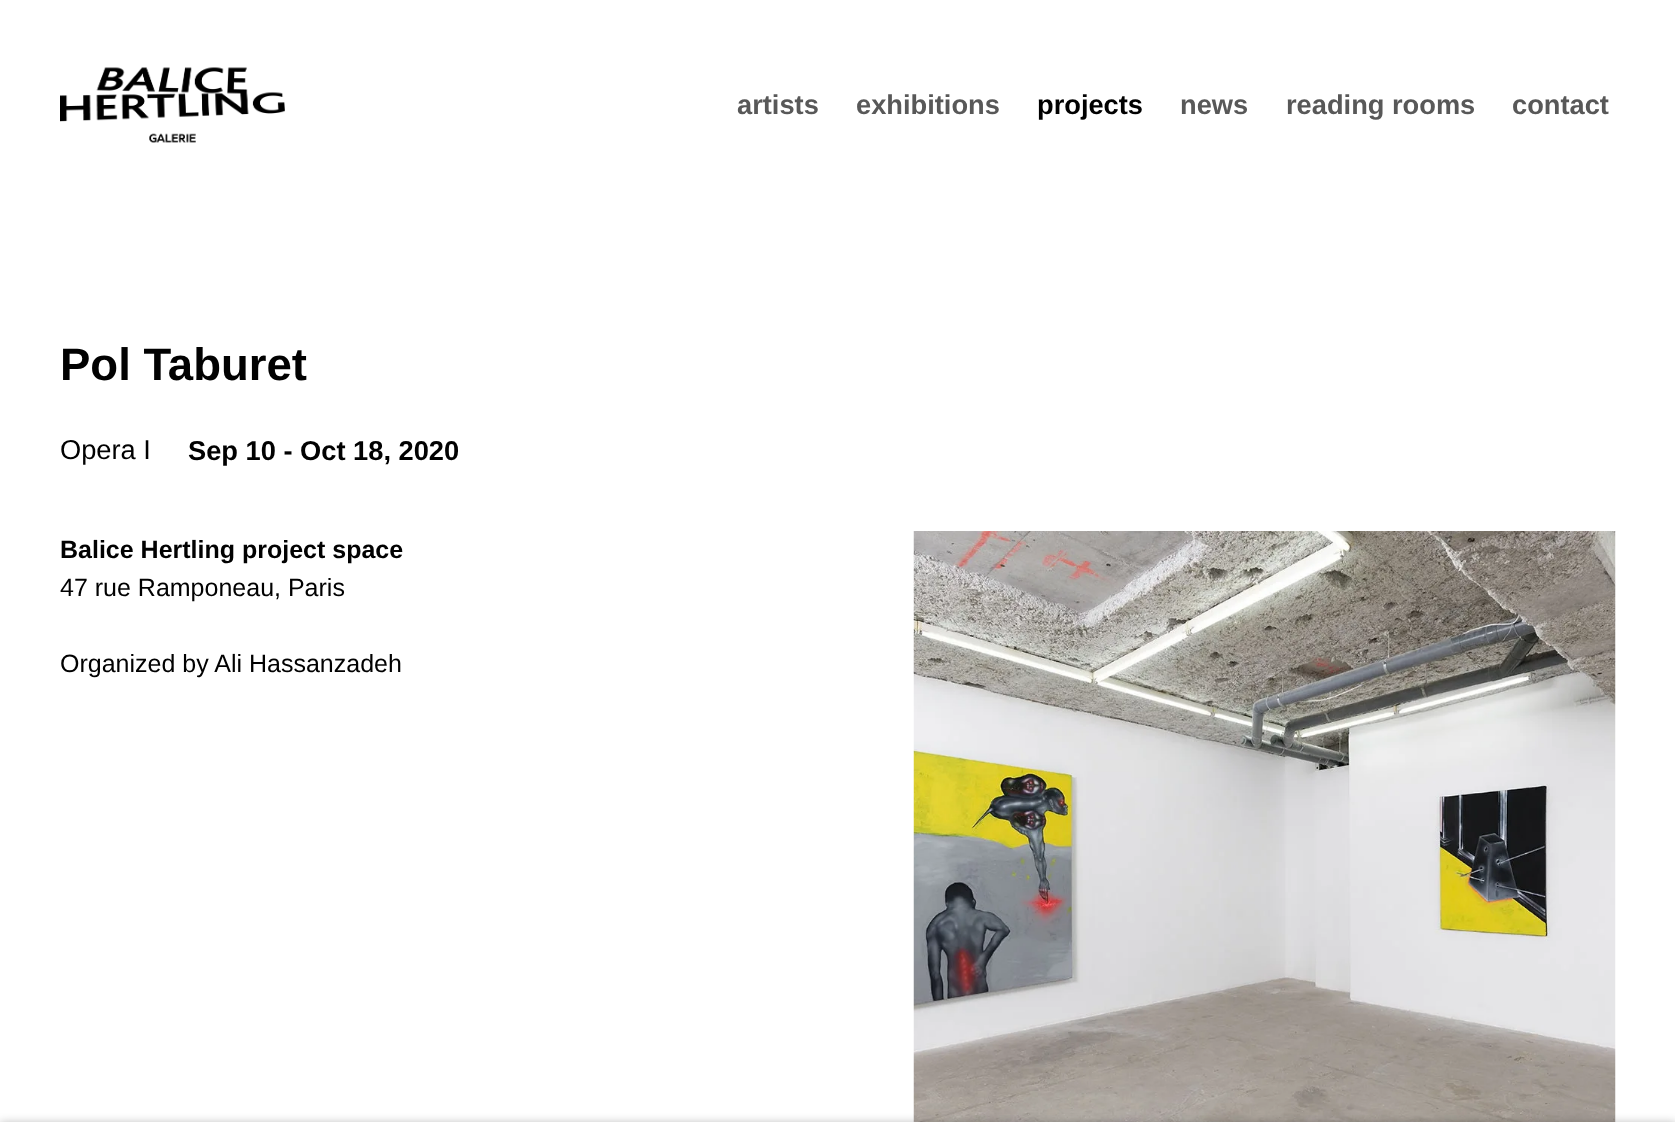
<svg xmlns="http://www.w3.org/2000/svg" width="1675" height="1122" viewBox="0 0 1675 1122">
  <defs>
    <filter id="blur1" x="-50%" y="-200%" width="200%" height="500%"><feGaussianBlur stdDeviation="4"/></filter>
  </defs>
  <rect width="100%" height="100%" fill="#ffffff"/>
  <image x="60" y="67" width="225" height="76" href="img1.png"/>
  <text x="737" y="114" font-family="Liberation Sans" font-size="27.25" font-weight="bold" fill="#585858">artists</text>
  <text x="856" y="114" font-family="Liberation Sans" font-size="27.25" font-weight="bold" fill="#585858">exhibitions</text>
  <text x="1037" y="114" font-family="Liberation Sans" font-size="27.25" font-weight="bold" fill="#010101">projects</text>
  <text x="1180" y="114" font-family="Liberation Sans" font-size="27.25" font-weight="bold" fill="#585858">news</text>
  <text x="1286" y="114" font-family="Liberation Sans" font-size="27.25" font-weight="bold" fill="#585858">reading rooms</text>
  <text x="1512" y="114" font-family="Liberation Sans" font-size="27.25" font-weight="bold" fill="#585858">contact</text>
  <text x="60" y="380" font-family="Liberation Sans" font-size="45.5" font-weight="bold" fill="#010101">Pol Taburet</text>
  <text x="60" y="459" font-family="Liberation Sans" font-size="27.25" fill="#010101">Opera I</text>
  <text x="188" y="460" font-family="Liberation Sans" font-size="27.25" font-weight="bold" fill="#010101">Sep 10 - Oct 18, 2020</text>
  <text x="60" y="558" font-family="Liberation Sans" font-size="25" font-weight="bold" fill="#010101">Balice Hertling project space</text>
  <text x="60" y="596" font-family="Liberation Sans" font-size="25" fill="#010101">47 rue Ramponeau, Paris</text>
  <text x="60" y="672" font-family="Liberation Sans" font-size="25" fill="#010101">Organized by Ali Hassanzadeh</text>
  <image x="913" y="531" width="703" height="591" href="img2.png"/>
  <rect x="0" y="1122" width="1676" height="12" fill="#000000" fill-opacity="0.23" filter="url(#blur1)"/>
</svg>
